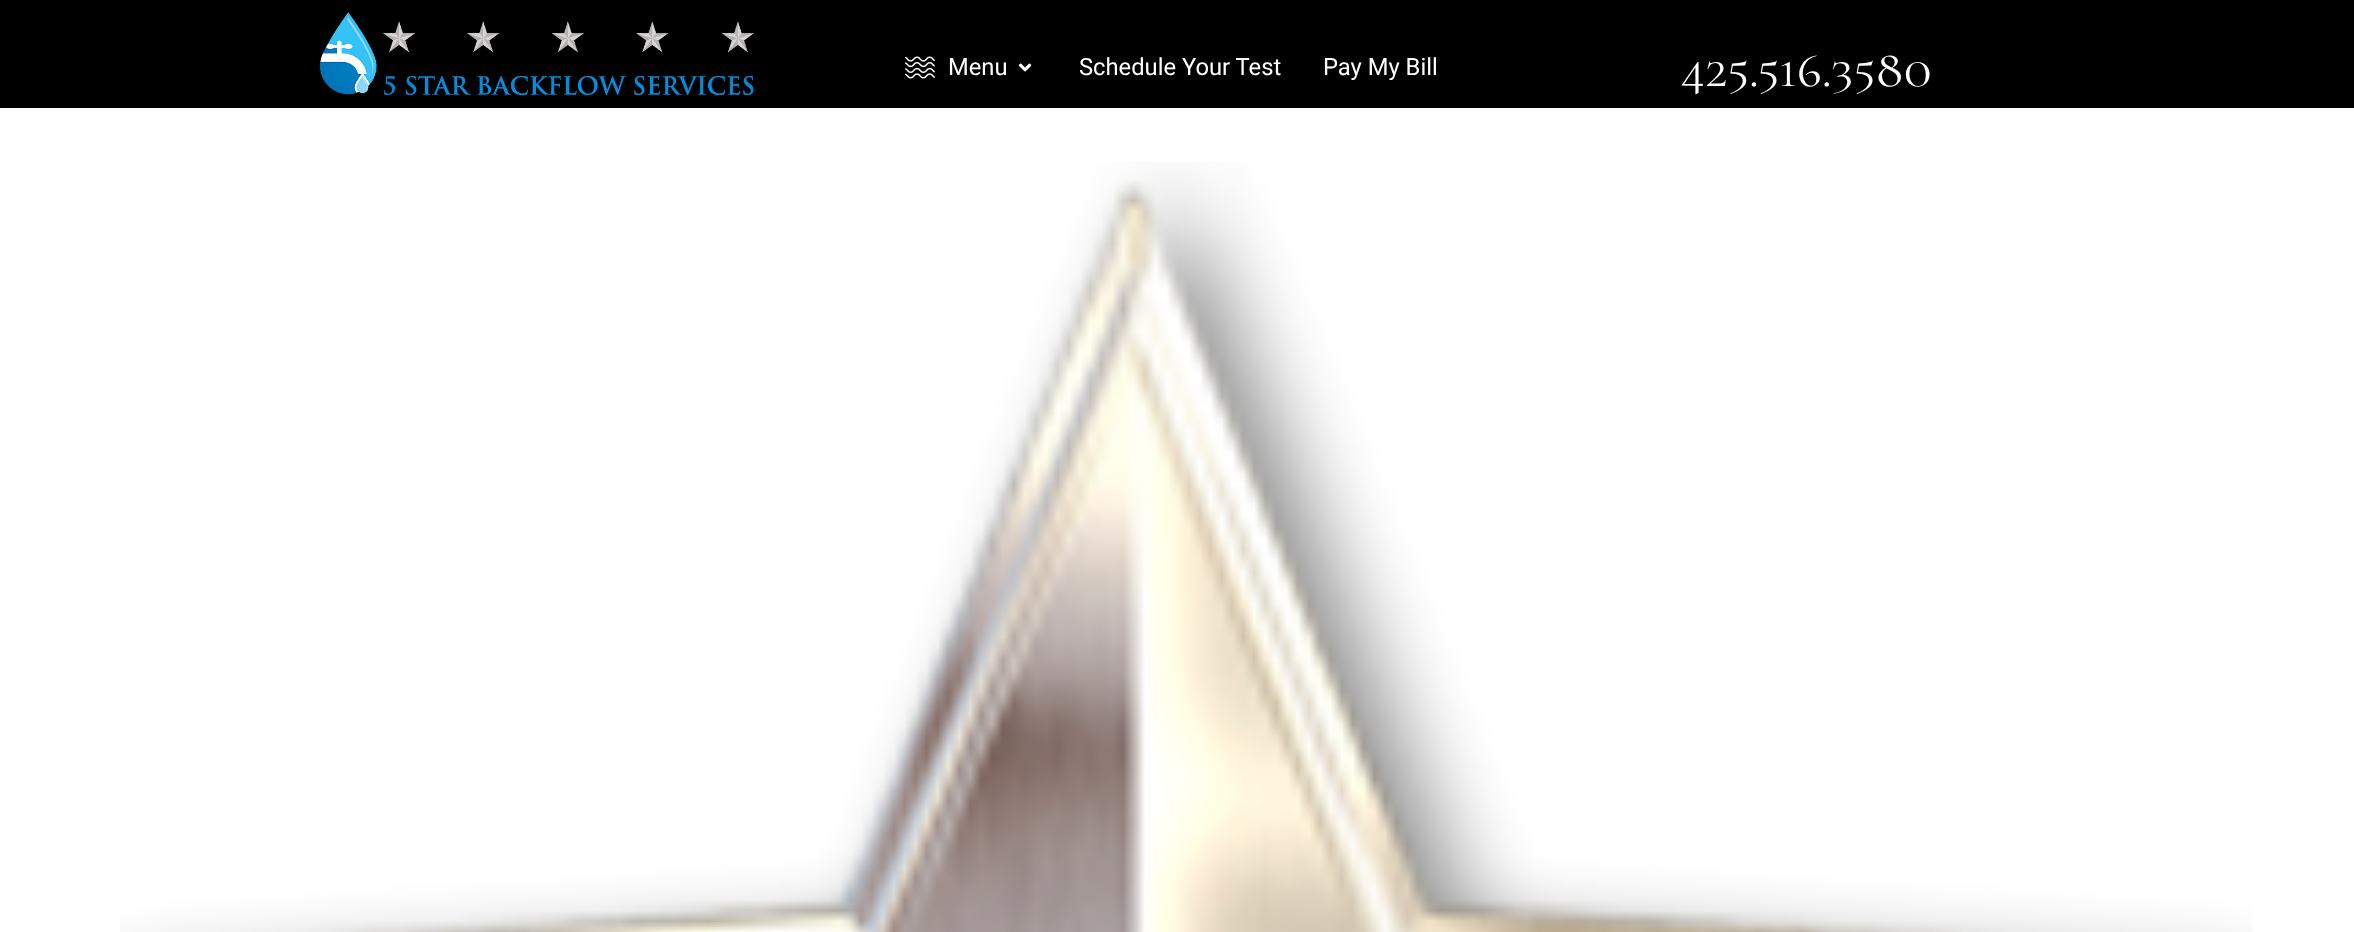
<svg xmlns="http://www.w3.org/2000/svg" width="2354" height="932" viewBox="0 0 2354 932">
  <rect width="100%" height="100%" fill="#ffffff"/>
  <rect x="0" y="0" width="2354" height="108" fill="#000000"/>
  <image x="320" y="12" width="434" height="83" href="img1.png"/>
  <image x="905" y="56" width="30" height="23" href="img2.png"/>
  <text x="948" y="75" font-family="Roboto" font-size="23.75" fill="#ffffff">Menu</text>
  <image x="1018" y="63" width="14" height="9" href="img3.png"/>
  <text x="1079" y="75" font-family="Roboto" font-size="23.75" fill="#ffffff">Schedule Your Test</text>
  <text x="1323" y="75" font-family="Roboto" font-size="23.75" fill="#ffffff">Pay My Bill</text>
  <text x="1681" y="86" font-family="Cormorant SC" font-size="50" fill="#ffffff">425.516.3580</text>
  <image x="120" y="162" width="2133" height="770" href="img4.png"/>
</svg>
